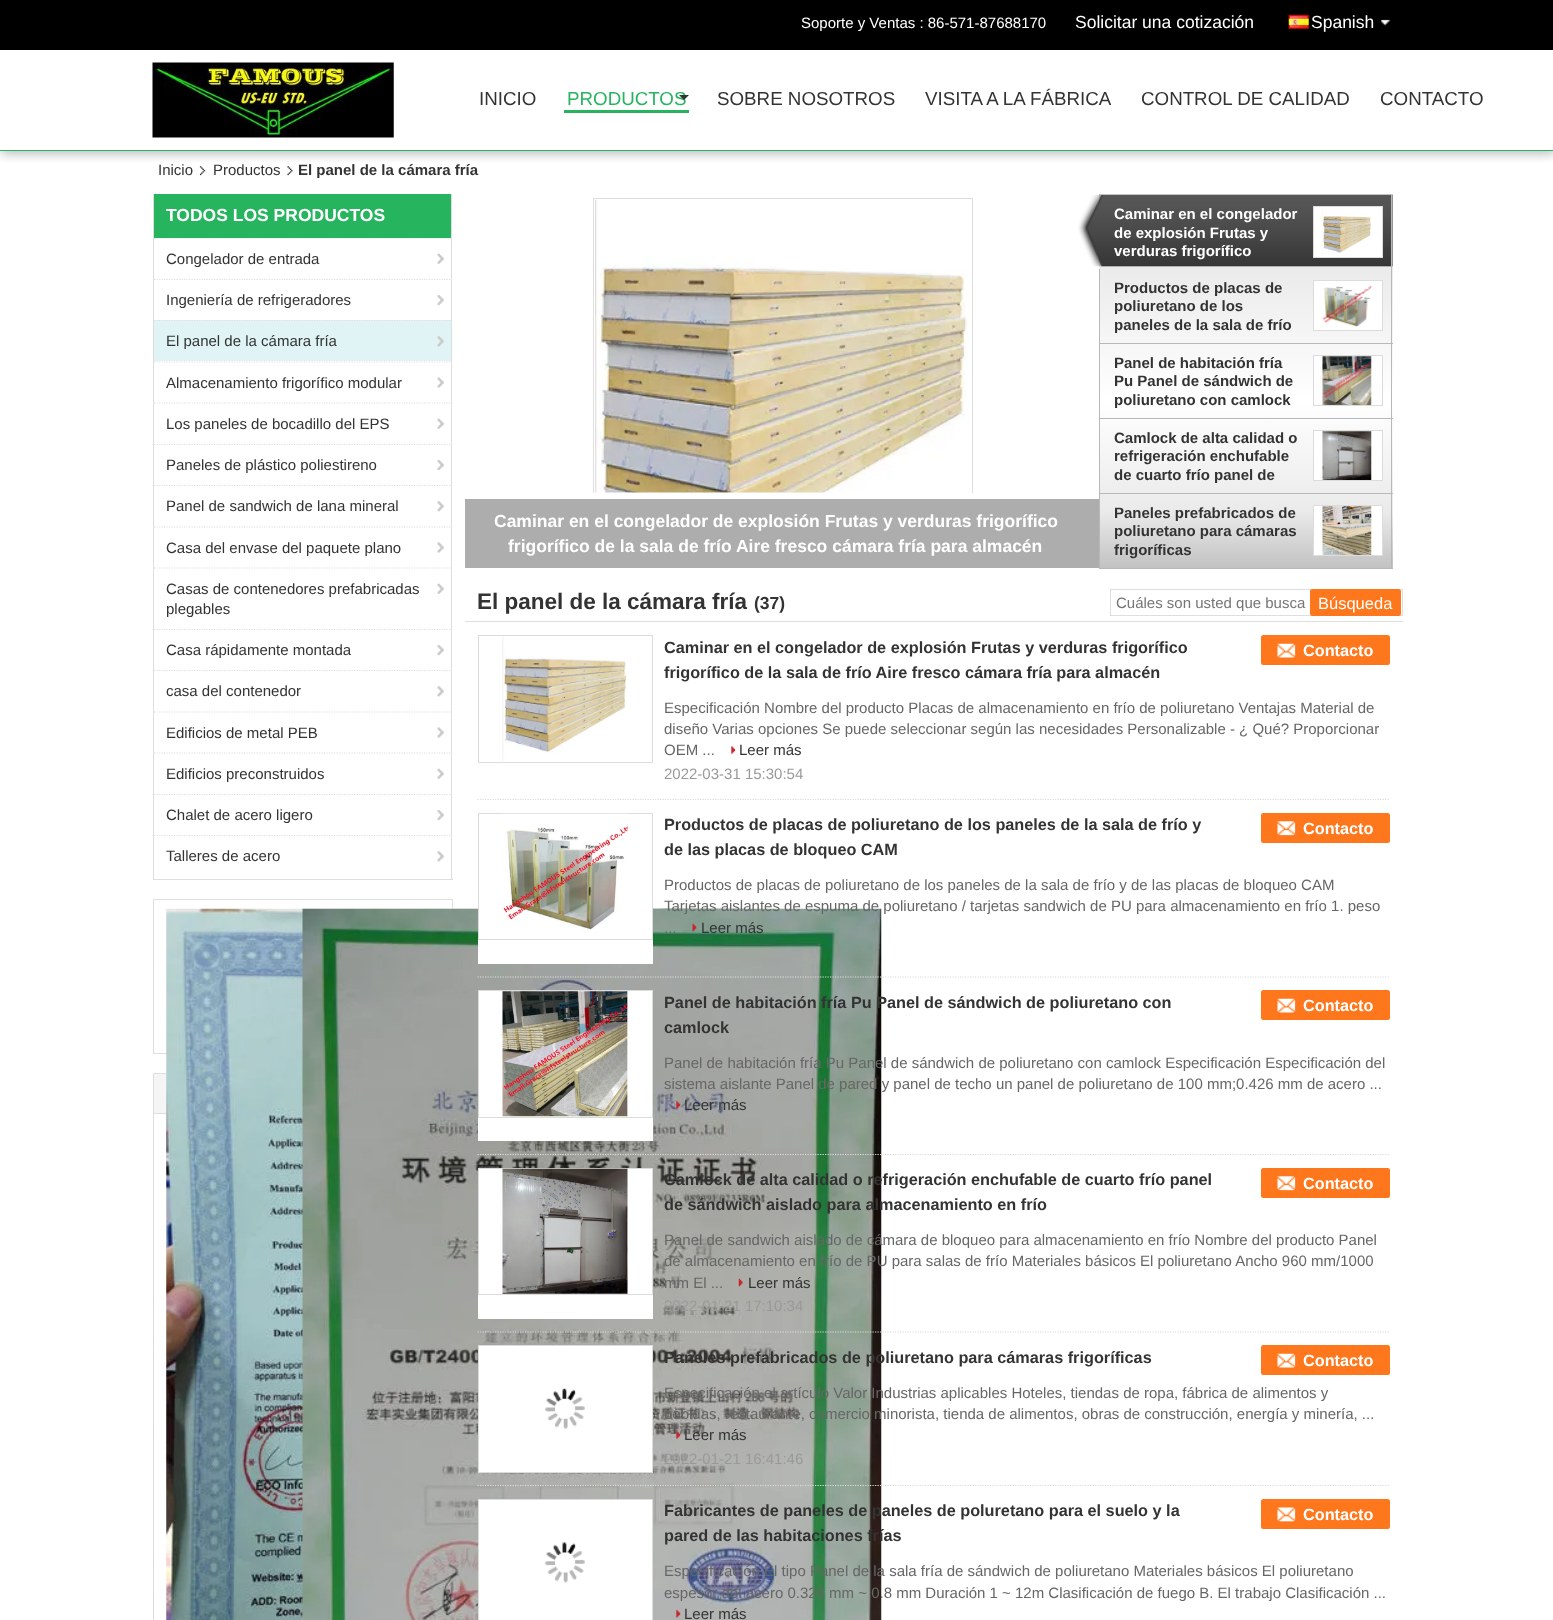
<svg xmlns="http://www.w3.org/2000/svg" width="1553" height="1620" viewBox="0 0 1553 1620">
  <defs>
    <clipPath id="clip1"><rect x="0" y="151" width="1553" height="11"/></clipPath>
    <filter id="blur1" x="-50%" y="-200%" width="200%" height="500%"><feGaussianBlur stdDeviation="6"/></filter>
    <clipPath id="clip2"><rect x="154" y="194" width="297" height="685"/></clipPath>
    <clipPath id="clip3"><rect x="465" y="194" width="635" height="299"/></clipPath>
    <linearGradient id="g1" gradientUnits="userSpaceOnUse" x1="1246" y1="-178" x2="1246" y2="195"><stop offset="0" stop-color="#d0d0d0"/><stop offset="0.15" stop-color="#e8e8e8"/><stop offset="0.55" stop-color="#ffffff"/><stop offset="0.85" stop-color="#eaeaea"/><stop offset="1" stop-color="#c2c2c2"/></linearGradient>
    <linearGradient id="g2" gradientUnits="userSpaceOnUse" x1="1246" y1="195" x2="1246" y2="568"><stop offset="0" stop-color="#d0d0d0"/><stop offset="0.15" stop-color="#e8e8e8"/><stop offset="0.55" stop-color="#ffffff"/><stop offset="0.85" stop-color="#eaeaea"/><stop offset="1" stop-color="#c2c2c2"/></linearGradient>
  </defs>
  <rect width="100%" height="100%" fill="#ffffff"/>
  <g clip-path="url(#clip1)">
    <rect x="1" y="1" width="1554" height="152" fill="#000000" fill-opacity="0.3" filter="url(#blur1)"/>
  </g>
  <rect x="0" y="150" width="1553" height="1" fill="#27b45f"/>
  <rect x="0" y="0" width="1553" height="50" fill="#000000"/>
  <text x="801" y="28" font-family="Liberation Sans" font-size="15" fill="#ffffff">Soporte y Ventas : 86-571-87688170</text>
  <text x="1075" y="28" font-family="Liberation Sans" font-size="17.5" fill="#ffffff">Solicitar una cotización</text>
  <image x="1288" y="14" width="21" height="15" href="img1.png"/>
  <text x="1311" y="28" font-family="Liberation Sans" font-size="17.5" fill="#ffffff">Spanish</text>
  <image x="1381" y="19" width="10" height="7" href="img2.png"/>
  <image x="152" y="62" width="242" height="76" href="img3.png"/>
  <text x="479" y="105" font-family="Liberation Sans" font-size="18.75" fill="#333333">INICIO</text>
  <rect x="564" y="110" width="125" height="3" fill="#27b45f"/>
  <text x="567" y="105" font-family="Liberation Sans" font-size="18.75" fill="#27b45f">PRODUCTOS</text>
  <path d="M679 95H689L684 100Z" fill="#333333"/>
  <text x="717" y="105" font-family="Liberation Sans" font-size="18.75" fill="#333333">SOBRE NOSOTROS</text>
  <text x="925" y="105" font-family="Liberation Sans" font-size="18.75" fill="#333333">VISITA A LA FÁBRICA</text>
  <text x="1141" y="105" font-family="Liberation Sans" font-size="18.75" fill="#333333">CONTROL DE CALIDAD</text>
  <text x="1380" y="105" font-family="Liberation Sans" font-size="18.75" fill="#333333">CONTACTO</text>
  <text x="158" y="175" font-family="Liberation Sans" font-size="15" fill="#333333">Inicio</text>
  <image x="199" y="166" width="7" height="10" href="img4.png"/>
  <text x="213" y="175" font-family="Liberation Sans" font-size="15" fill="#333333">Productos</text>
  <image x="287" y="166" width="6" height="10" href="img5.png"/>
  <text x="298" y="175" font-family="Liberation Sans" font-size="15" font-weight="bold" fill="#333333">El panel de la cámara fría</text>
  <rect x="451" y="194" width="1" height="686" fill="#dedede"/>
  <rect x="153" y="879" width="300" height="1" fill="#dedede"/>
  <rect x="153" y="194" width="1" height="686" fill="#dedede"/>
  <g clip-path="url(#clip2)">
    <path d="M154 238H454" fill="none" stroke="#dedede" stroke-width="1.2" stroke-dasharray="1.25 1.25"/>
  </g>
  <rect x="154" y="194" width="297" height="44" fill="#27b45f"/>
  <text x="166" y="221" font-family="Liberation Sans" font-size="17.5" font-weight="bold" fill="#ffffff">TODOS LOS PRODUCTOS</text>
  <image x="437" y="253" width="7" height="11" href="img6.png"/>
  <text x="166" y="264" font-family="Liberation Sans" font-size="15" fill="#333333">Congelador de entrada</text>
  <image x="437" y="295" width="7" height="11" href="img7.png"/>
  <g clip-path="url(#clip2)">
    <path d="M154 279.5H454" fill="none" stroke="#dedede" stroke-width="1.2" stroke-dasharray="1.25 1.25"/>
  </g>
  <text x="166" y="305" font-family="Liberation Sans" font-size="15" fill="#333333">Ingeniería de refrigeradores</text>
  <rect x="154" y="320" width="297" height="41" fill="#e0f4f6"/>
  <image x="437" y="336" width="7" height="11" href="img8.png"/>
  <g clip-path="url(#clip2)">
    <path d="M154 320.5H454" fill="none" stroke="#dedede" stroke-width="1.2" stroke-dasharray="1.25 1.25"/>
  </g>
  <text x="166" y="346" font-family="Liberation Sans" font-size="15" fill="#333333">El panel de la cámara fría</text>
  <image x="437" y="377" width="7" height="11" href="img9.png"/>
  <g clip-path="url(#clip2)">
    <path d="M154 362H454" fill="none" stroke="#dedede" stroke-width="1.2" stroke-dasharray="1.25 1.25"/>
  </g>
  <text x="166" y="388" font-family="Liberation Sans" font-size="15" fill="#333333">Almacenamiento frigorífico modular</text>
  <image x="437" y="418" width="7" height="11" href="img6.png"/>
  <g clip-path="url(#clip2)">
    <path d="M154 403H454" fill="none" stroke="#dedede" stroke-width="1.2" stroke-dasharray="1.25 1.25"/>
  </g>
  <text x="166" y="429" font-family="Liberation Sans" font-size="15" fill="#333333">Los paneles de bocadillo del EPS</text>
  <image x="437" y="460" width="7" height="11" href="img10.png"/>
  <g clip-path="url(#clip2)">
    <path d="M154 444.5H454" fill="none" stroke="#dedede" stroke-width="1.2" stroke-dasharray="1.25 1.25"/>
  </g>
  <text x="166" y="470" font-family="Liberation Sans" font-size="15" fill="#333333">Paneles de plástico poliestireno</text>
  <image x="437" y="501" width="7" height="11" href="img11.png"/>
  <g clip-path="url(#clip2)">
    <path d="M154 485.5H454" fill="none" stroke="#dedede" stroke-width="1.2" stroke-dasharray="1.25 1.25"/>
  </g>
  <text x="166" y="511" font-family="Liberation Sans" font-size="15" fill="#333333">Panel de sandwich de lana mineral</text>
  <image x="437" y="542" width="7" height="11" href="img9.png"/>
  <g clip-path="url(#clip2)">
    <path d="M154 527H454" fill="none" stroke="#dedede" stroke-width="1.2" stroke-dasharray="1.25 1.25"/>
  </g>
  <text x="166" y="553" font-family="Liberation Sans" font-size="15" fill="#333333">Casa del envase del paquete plano</text>
  <image x="437" y="583" width="7" height="11" href="img12.png"/>
  <g clip-path="url(#clip2)">
    <path d="M154 568H454" fill="none" stroke="#dedede" stroke-width="1.2" stroke-dasharray="1.25 1.25"/>
  </g>
  <text x="166" y="594" font-family="Liberation Sans" font-size="15" fill="#333333">Casas de contenedores prefabricadas</text>
  <text x="166" y="614" font-family="Liberation Sans" font-size="15" fill="#333333">plegables</text>
  <image x="437" y="645" width="7" height="11" href="img10.png"/>
  <g clip-path="url(#clip2)">
    <path d="M154 629.5H454" fill="none" stroke="#dedede" stroke-width="1.2" stroke-dasharray="1.25 1.25"/>
  </g>
  <text x="166" y="655" font-family="Liberation Sans" font-size="15" fill="#333333">Casa rápidamente montada</text>
  <image x="437" y="686" width="7" height="11" href="img11.png"/>
  <g clip-path="url(#clip2)">
    <path d="M154 670.5H454" fill="none" stroke="#dedede" stroke-width="1.2" stroke-dasharray="1.25 1.25"/>
  </g>
  <text x="166" y="696" font-family="Liberation Sans" font-size="15" fill="#333333">casa del contenedor</text>
  <image x="437" y="727" width="7" height="11" href="img9.png"/>
  <g clip-path="url(#clip2)">
    <path d="M154 712H454" fill="none" stroke="#dedede" stroke-width="1.2" stroke-dasharray="1.25 1.25"/>
  </g>
  <text x="166" y="738" font-family="Liberation Sans" font-size="15" fill="#333333">Edificios de metal PEB</text>
  <image x="437" y="768" width="7" height="11" href="img6.png"/>
  <g clip-path="url(#clip2)">
    <path d="M154 753H454" fill="none" stroke="#dedede" stroke-width="1.2" stroke-dasharray="1.25 1.25"/>
  </g>
  <text x="166" y="779" font-family="Liberation Sans" font-size="15" fill="#333333">Edificios preconstruidos</text>
  <image x="437" y="810" width="7" height="11" href="img10.png"/>
  <g clip-path="url(#clip2)">
    <path d="M154 794.5H454" fill="none" stroke="#dedede" stroke-width="1.2" stroke-dasharray="1.25 1.25"/>
  </g>
  <text x="166" y="820" font-family="Liberation Sans" font-size="15" fill="#333333">Chalet de acero ligero</text>
  <image x="437" y="851" width="7" height="11" href="img11.png"/>
  <g clip-path="url(#clip2)">
    <path d="M154 835.5H454" fill="none" stroke="#dedede" stroke-width="1.2" stroke-dasharray="1.25 1.25"/>
  </g>
  <text x="166" y="861" font-family="Liberation Sans" font-size="15" fill="#333333">Talleres de acero</text>
  <rect x="153.5" y="899.5" width="299" height="154" fill="none" stroke="#dedede"/>
  <rect x="153.5" y="1073.5" width="299" height="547" fill="none" stroke="#dedede"/>
  <rect x="154" y="1074" width="13" height="39" fill="#f5f5f5"/>
  <rect x="154" y="1113" width="13" height="1" fill="#dedede"/>
  <image x="166" y="908" width="579" height="712" href="img13.png"/>
  <image x="302" y="908" width="580" height="712" href="img14.png"/>
  <g clip-path="url(#clip3)">
    <rect x="593.5" y="198.5" width="379" height="379" fill="none" stroke="#dedede"/>
  </g>
  <image x="595" y="200" width="373" height="293" href="img15.png"/>
  <rect x="465" y="499" width="634" height="69" fill="#adadad"/>
  <text x="494" y="527" font-family="Liberation Sans" font-size="17.5" font-weight="bold" fill="#ffffff">Caminar en el congelador de explosión Frutas y verduras frigorífico</text>
  <text x="508" y="552" font-family="Liberation Sans" font-size="17.5" font-weight="bold" fill="#ffffff">frigorífico de la sala de frío Aire fresco cámara fría para almacén</text>
  <rect x="1099" y="194" width="294" height="1" fill="url(#g1)"/>
  <rect x="1099" y="195" width="294" height="373" fill="url(#g2)"/>
  <image x="1078" y="195" width="315" height="72" href="img16.png"/>
  <rect x="1391" y="195" width="1" height="374" fill="#b8b8b8"/>
  <text x="1114" y="219" font-family="Liberation Sans" font-size="15" font-weight="bold" fill="#ffffff">Caminar en el congelador</text>
  <text x="1114" y="238" font-family="Liberation Sans" font-size="15" font-weight="bold" fill="#ffffff">de explosión Frutas y</text>
  <text x="1114" y="256" font-family="Liberation Sans" font-size="15" font-weight="bold" fill="#ffffff">verduras frigorífico</text>
  <rect x="1313.5" y="206.5" width="69" height="51" fill="#ffffff" stroke="#dcdcdc"/>
  <image x="1322" y="208" width="49" height="48" href="img17.png"/>
  <rect x="1099" y="343" width="294" height="1" fill="#b8b8b8"/>
  <rect x="1099" y="269" width="1" height="75" fill="#b8b8b8"/>
  <text x="1114" y="293" font-family="Liberation Sans" font-size="15" font-weight="bold" fill="#333333">Productos de placas de</text>
  <text x="1114" y="311" font-family="Liberation Sans" font-size="15" font-weight="bold" fill="#333333">poliuretano de los</text>
  <text x="1114" y="330" font-family="Liberation Sans" font-size="15" font-weight="bold" fill="#333333">paneles de la sala de frío</text>
  <rect x="1313.5" y="280.5" width="69" height="50" fill="#ffffff" stroke="#dcdcdc"/>
  <image x="1322" y="285" width="50" height="42" href="img18.png"/>
  <rect x="1099" y="418" width="294" height="1" fill="#b8b8b8"/>
  <rect x="1099" y="344" width="1" height="75" fill="#b8b8b8"/>
  <text x="1114" y="368" font-family="Liberation Sans" font-size="15" font-weight="bold" fill="#333333">Panel de habitación fría</text>
  <text x="1114" y="386" font-family="Liberation Sans" font-size="15" font-weight="bold" fill="#333333">Pu Panel de sándwich de</text>
  <text x="1114" y="405" font-family="Liberation Sans" font-size="15" font-weight="bold" fill="#333333">poliuretano con camlock</text>
  <rect x="1314" y="356" width="68" height="28" fill="#ffffff"/>
  <rect x="1313.5" y="355.5" width="69" height="50" fill="none" stroke="#dcdcdc"/>
  <image x="1322" y="356" width="50" height="49" href="img19.png"/>
  <rect x="1099" y="493" width="294" height="1" fill="#b8b8b8"/>
  <rect x="1099" y="419" width="1" height="75" fill="#b8b8b8"/>
  <text x="1114" y="443" font-family="Liberation Sans" font-size="15" font-weight="bold" fill="#333333">Camlock de alta calidad o</text>
  <text x="1114" y="461" font-family="Liberation Sans" font-size="15" font-weight="bold" fill="#333333">refrigeración enchufable</text>
  <text x="1114" y="480" font-family="Liberation Sans" font-size="15" font-weight="bold" fill="#333333">de cuarto frío panel de</text>
  <rect x="1313.5" y="430.5" width="69" height="50" fill="#ffffff" stroke="#dcdcdc"/>
  <image x="1322" y="431" width="50" height="49" href="img20.png"/>
  <rect x="1099" y="568" width="294" height="1" fill="#b8b8b8"/>
  <rect x="1099" y="494" width="1" height="75" fill="#b8b8b8"/>
  <text x="1114" y="518" font-family="Liberation Sans" font-size="15" font-weight="bold" fill="#333333">Paneles prefabricados de</text>
  <text x="1114" y="536" font-family="Liberation Sans" font-size="15" font-weight="bold" fill="#333333">poliuretano para cámaras</text>
  <text x="1114" y="555" font-family="Liberation Sans" font-size="15" font-weight="bold" fill="#333333">frigoríficas</text>
  <rect x="1313.5" y="505.5" width="69" height="50" fill="#ffffff" stroke="#dcdcdc"/>
  <image x="1322" y="506" width="50" height="49" href="img21.png"/>
  <rect x="465" y="621" width="938" height="1" fill="#dedede"/>
  <text x="477" y="609" font-family="Liberation Sans" font-size="22.5" font-weight="bold" fill="#333333">El panel de la cámara fría</text>
  <text x="754" y="609" font-family="Liberation Sans" font-size="17.5" font-weight="bold" fill="#333333">(37)</text>
  <rect x="1110.5" y="589.5" width="292" height="26" fill="none" stroke="#dedede"/>
  <text x="1116" y="608" font-family="Liberation Sans" font-size="15" fill="#757575">Cuáles son usted que busca</text>
  <rect x="1310" y="589" width="91" height="27" rx="2.5" fill="#ff771c"/>
  <text x="1318" y="609" font-family="Liberation Sans" font-size="16.5" fill="#ffffff">Búsqueda</text>
  <path d="M477.5 799.5H1390" fill="none" stroke="#dcdcdc" stroke-width="1.2" stroke-dasharray="1.25 1.25"/>
  <rect x="478.5" y="635.5" width="174" height="127" fill="none" stroke="#dcdcdc"/>
  <image x="502" y="636" width="125" height="125" href="img22.png"/>
  <text x="664" y="653" font-family="Liberation Sans" font-size="16.25" font-weight="bold" fill="#333333">Caminar en el congelador de explosión Frutas y verduras frigorífico</text>
  <rect x="1261" y="635" width="129" height="30" rx="2.5" fill="#ff771c"/>
  <image x="1277" y="643" width="19" height="15" href="img23.png"/>
  <text x="1303" y="656" font-family="Liberation Sans" font-size="16.25" font-weight="bold" fill="#ffffff">Contacto</text>
  <text x="664" y="678" font-family="Liberation Sans" font-size="16.25" font-weight="bold" fill="#333333">frigorífico de la sala de frío Aire fresco cámara fría para almacén</text>
  <text x="664" y="713" font-family="Liberation Sans" font-size="15" fill="#666666">Especificación Nombre del producto Placas de almacenamiento en frío de poliuretano Ventajas Material de</text>
  <text x="664" y="734" font-family="Liberation Sans" font-size="15" fill="#666666">diseño Varias opciones Se puede seleccionar según las necesidades Personalizable - ¿ Qué? Proporcionar</text>
  <text x="664" y="755" font-family="Liberation Sans" font-size="15" fill="#666666">OEM ...</text>
  <image x="731" y="746" width="5" height="8" href="img24.png"/>
  <text x="739" y="755" font-family="Liberation Sans" font-size="15" fill="#333333">Leer más</text>
  <text x="664" y="779" font-family="Liberation Sans" font-size="15" fill="#999999">2022-03-31 15:30:54</text>
  <path d="M477.5 977H1390" fill="none" stroke="#dcdcdc" stroke-width="1.2" stroke-dasharray="1.25 1.25"/>
  <rect x="478" y="908" width="175" height="56" fill="#ffffff"/>
  <rect x="478.5" y="813.5" width="174" height="126" fill="none" stroke="#dcdcdc"/>
  <image x="502" y="813" width="126" height="117" href="img25.png"/>
  <text x="664" y="830" font-family="Liberation Sans" font-size="16.25" font-weight="bold" fill="#333333">Productos de placas de poliuretano de los paneles de la sala de frío y</text>
  <rect x="1261" y="813" width="129" height="30" rx="2.5" fill="#ff771c"/>
  <image x="1277" y="821" width="19" height="15" href="img26.png"/>
  <text x="1303" y="834" font-family="Liberation Sans" font-size="16.25" font-weight="bold" fill="#ffffff">Contacto</text>
  <text x="664" y="855" font-family="Liberation Sans" font-size="16.25" font-weight="bold" fill="#333333">de las placas de bloqueo CAM</text>
  <text x="664" y="890" font-family="Liberation Sans" font-size="15" fill="#666666">Productos de placas de poliuretano de los paneles de la sala de frío y de las placas de bloqueo CAM</text>
  <text x="664" y="911" font-family="Liberation Sans" font-size="15" fill="#666666">Tarjetas aislantes de espuma de poliuretano / tarjetas sandwich de PU para almacenamiento en frío 1. peso</text>
  <text x="664" y="933" font-family="Liberation Sans" font-size="15" fill="#666666">...</text>
  <image x="692" y="923" width="5" height="9" href="img27.png"/>
  <text x="701" y="933" font-family="Liberation Sans" font-size="15" fill="#333333">Leer más</text>
  <path d="M477.5 1154.5H1390" fill="none" stroke="#dcdcdc" stroke-width="1.2" stroke-dasharray="1.25 1.25"/>
  <rect x="478" y="991" width="175" height="150" fill="#ffffff"/>
  <rect x="478.5" y="990.5" width="174" height="127" fill="none" stroke="#dcdcdc"/>
  <image x="502" y="991" width="126" height="126" href="img28.png"/>
  <text x="664" y="1008" font-family="Liberation Sans" font-size="16.25" font-weight="bold" fill="#333333">Panel de habitación fría Pu Panel de sándwich de poliuretano con</text>
  <rect x="1261" y="990" width="129" height="30" rx="2.5" fill="#ff771c"/>
  <image x="1277" y="998" width="19" height="15" href="img23.png"/>
  <text x="1303" y="1011" font-family="Liberation Sans" font-size="16.25" font-weight="bold" fill="#ffffff">Contacto</text>
  <text x="664" y="1033" font-family="Liberation Sans" font-size="16.25" font-weight="bold" fill="#333333">camlock</text>
  <text x="664" y="1068" font-family="Liberation Sans" font-size="15" fill="#666666">Panel de habitación fría Pu Panel de sándwich de poliuretano con camlock Especificación Especificación del</text>
  <text x="664" y="1089" font-family="Liberation Sans" font-size="15" fill="#666666">sistema aislante Panel de pared y panel de techo un panel de poliuretano de 100 mm;0.426 mm de acero ...</text>
  <image x="676" y="1101" width="5" height="8" href="img29.png"/>
  <text x="684" y="1110" font-family="Liberation Sans" font-size="15" fill="#333333">Leer más</text>
  <path d="M477.5 1332H1390" fill="none" stroke="#dcdcdc" stroke-width="1.2" stroke-dasharray="1.25 1.25"/>
  <rect x="478" y="1169" width="175" height="150" fill="#ffffff"/>
  <rect x="478.5" y="1168.5" width="174" height="126" fill="none" stroke="#dcdcdc"/>
  <image x="502" y="1168" width="126" height="126" href="img30.png"/>
  <text x="664" y="1185" font-family="Liberation Sans" font-size="16.25" font-weight="bold" fill="#333333">Camlock de alta calidad o refrigeración enchufable de cuarto frío panel</text>
  <rect x="1261" y="1168" width="129" height="30" rx="2.5" fill="#ff771c"/>
  <image x="1277" y="1176" width="19" height="15" href="img26.png"/>
  <text x="1303" y="1189" font-family="Liberation Sans" font-size="16.25" font-weight="bold" fill="#ffffff">Contacto</text>
  <text x="664" y="1210" font-family="Liberation Sans" font-size="16.25" font-weight="bold" fill="#333333">de sándwich aislado para almacenamiento en frío</text>
  <text x="664" y="1245" font-family="Liberation Sans" font-size="15" fill="#666666">Panel de sandwich aislado de cámara de bloqueo para almacenamiento en frío Nombre del producto Panel</text>
  <text x="664" y="1266" font-family="Liberation Sans" font-size="15" fill="#666666">de almacenamiento en frío de PU para salas de frío Materiales básicos El poliuretano Ancho 960 mm/1000</text>
  <text x="664" y="1288" font-family="Liberation Sans" font-size="15" fill="#666666">mm El ...</text>
  <image x="738" y="1278" width="5" height="9" href="img31.png"/>
  <text x="748" y="1288" font-family="Liberation Sans" font-size="15" fill="#333333">Leer más</text>
  <text x="664" y="1311" font-family="Liberation Sans" font-size="15" fill="#999999">2022-01-21 17:10:34</text>
  <path d="M477.5 1485.5H1390" fill="none" stroke="#dcdcdc" stroke-width="1.2" stroke-dasharray="1.25 1.25"/>
  <rect x="478.5" y="1345.5" width="174" height="127" fill="#ffffff" stroke="#dcdcdc"/>
  <image x="545" y="1388" width="40" height="41" href="img32.png"/>
  <text x="664" y="1363" font-family="Liberation Sans" font-size="16.25" font-weight="bold" fill="#333333">Paneles prefabricados de poliuretano para cámaras frigoríficas</text>
  <rect x="1261" y="1345" width="129" height="30" rx="2.5" fill="#ff771c"/>
  <image x="1277" y="1353" width="19" height="15" href="img23.png"/>
  <text x="1303" y="1366" font-family="Liberation Sans" font-size="16.25" font-weight="bold" fill="#ffffff">Contacto</text>
  <text x="664" y="1398" font-family="Liberation Sans" font-size="15" fill="#666666">Especificación el artículo Valor Industrias aplicables Hoteles, tiendas de ropa, fábrica de alimentos y</text>
  <text x="664" y="1419" font-family="Liberation Sans" font-size="15" fill="#666666">bebidas, restaurante, comercio minorista, tienda de alimentos, obras de construcción, energía y minería, ...</text>
  <image x="676" y="1431" width="5" height="8" href="img33.png"/>
  <text x="684" y="1440" font-family="Liberation Sans" font-size="15" fill="#333333">Leer más</text>
  <text x="664" y="1464" font-family="Liberation Sans" font-size="15" fill="#999999">2022-01-21 16:41:46</text>
  <rect x="478.5" y="1499.5" width="174" height="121" fill="#ffffff" stroke="#dcdcdc"/>
  <image x="545" y="1542" width="40" height="41" href="img34.png"/>
  <text x="664" y="1516" font-family="Liberation Sans" font-size="16.25" font-weight="bold" fill="#333333">Fabricantes de paneles de paneles de poluretano para el suelo y la</text>
  <rect x="1261" y="1499" width="129" height="30" rx="2.5" fill="#ff771c"/>
  <image x="1277" y="1507" width="19" height="15" href="img35.png"/>
  <text x="1303" y="1520" font-family="Liberation Sans" font-size="16.25" font-weight="bold" fill="#ffffff">Contacto</text>
  <text x="664" y="1541" font-family="Liberation Sans" font-size="16.25" font-weight="bold" fill="#333333">pared de las habitaciones frías</text>
  <text x="664" y="1576" font-family="Liberation Sans" font-size="15" fill="#666666">Especificación El tipo Panel de la sala fría de sándwich de poliuretano Materiales básicos El poliuretano</text>
  <text x="664" y="1598" font-family="Liberation Sans" font-size="15" fill="#666666">espesor del acero 0.326 mm ~ 0.8 mm Duración 1 ~ 12m Clasificación de fuego B. El trabajo Clasificación ...</text>
  <image x="676" y="1609" width="5" height="9" href="img36.png"/>
  <text x="684" y="1619" font-family="Liberation Sans" font-size="15" fill="#333333">Leer más</text>
</svg>
